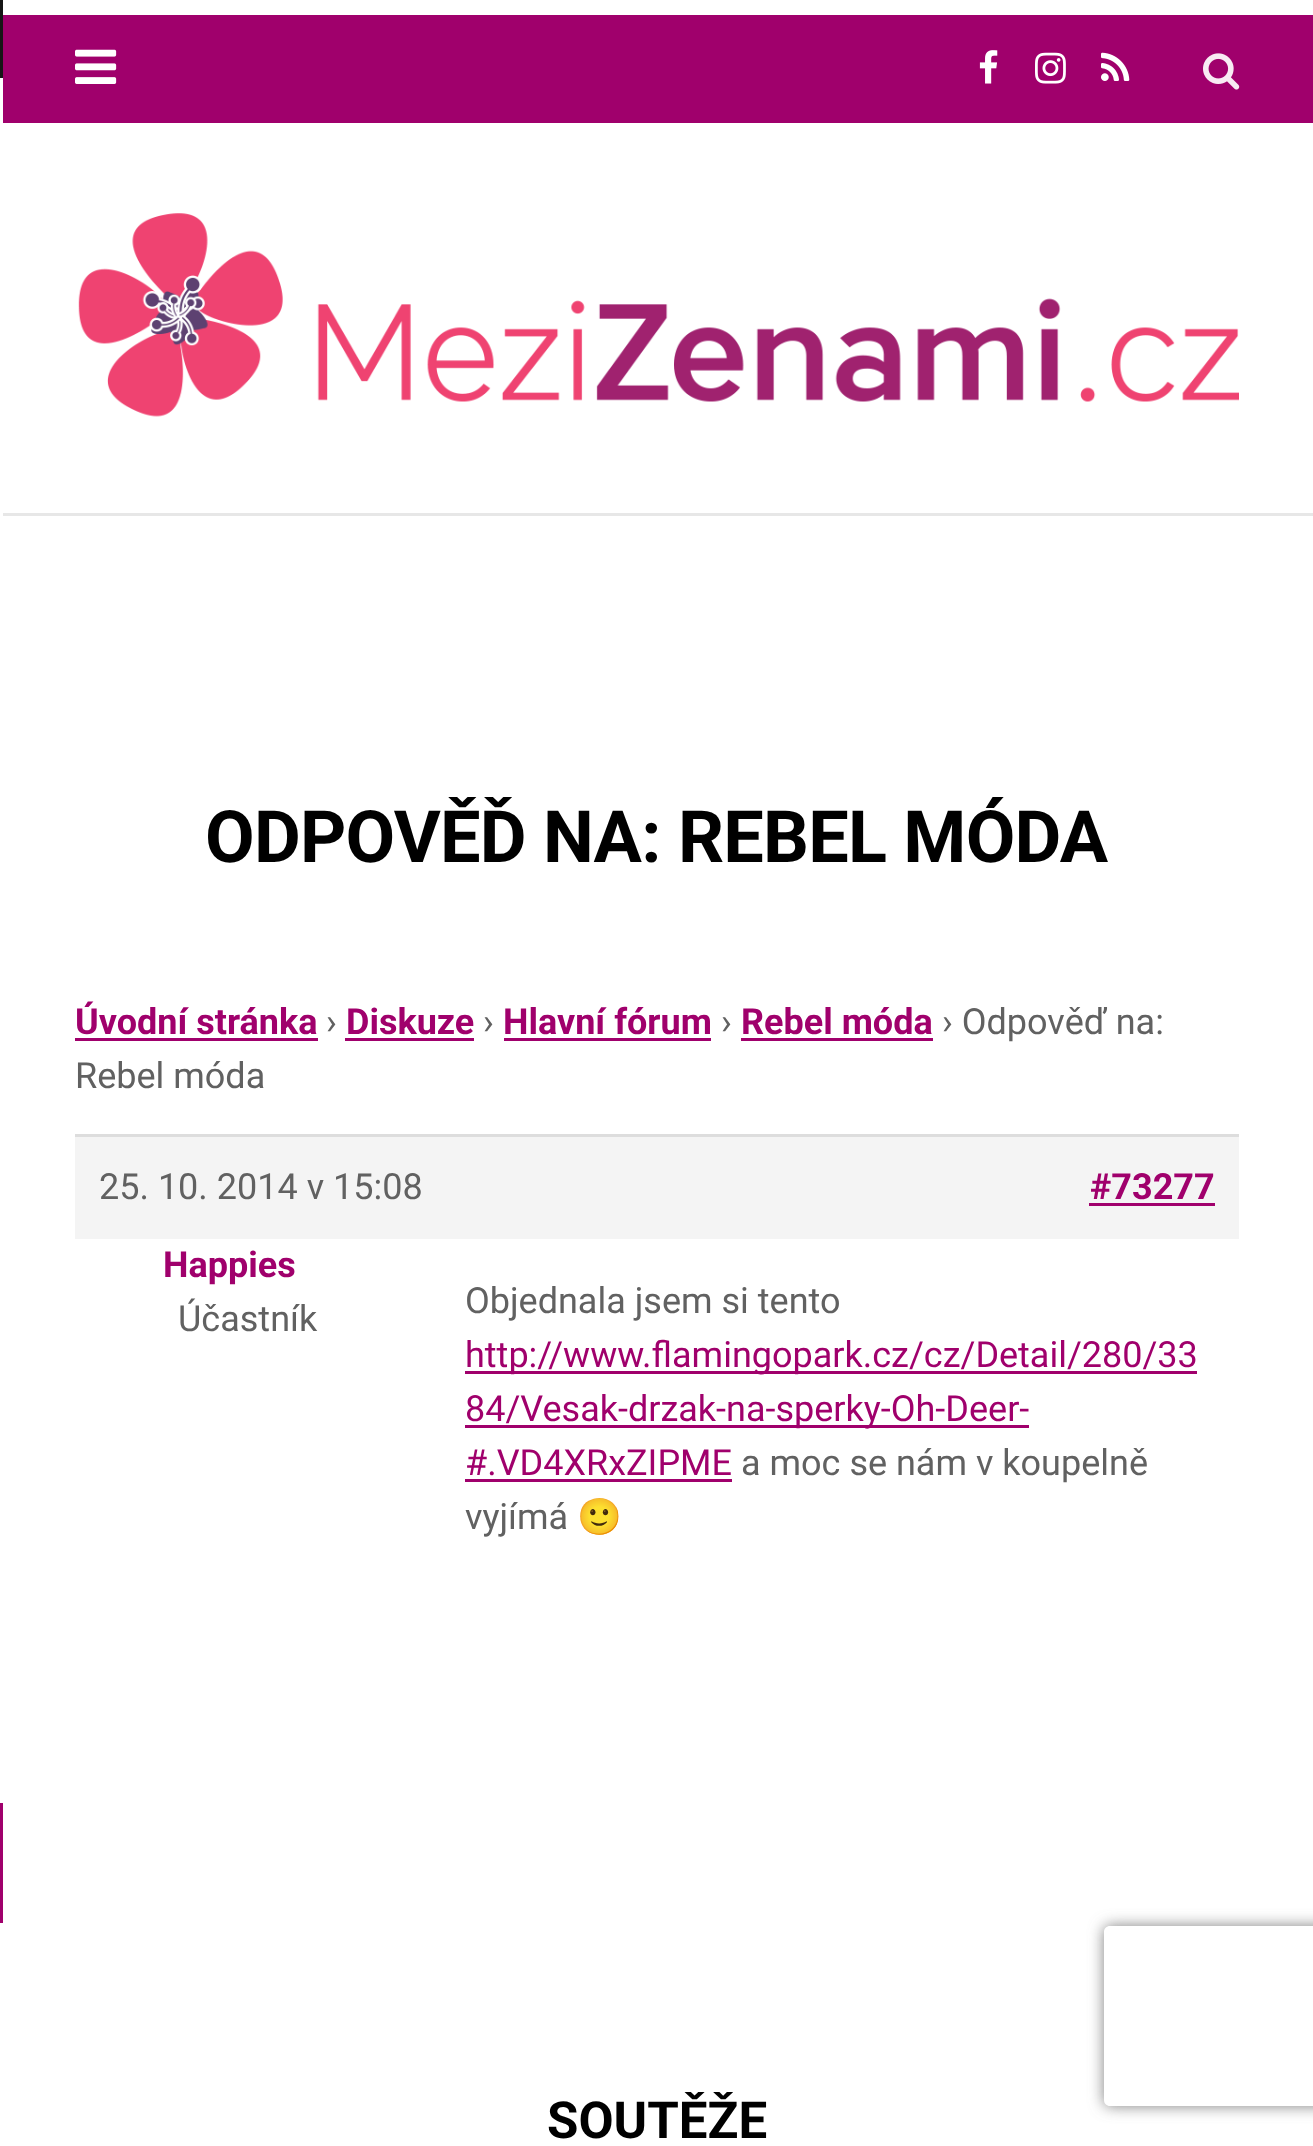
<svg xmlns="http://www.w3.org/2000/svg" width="1313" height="2146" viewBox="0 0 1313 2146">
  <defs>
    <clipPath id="clip1"><path d="M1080 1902H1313V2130H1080ZM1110 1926H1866C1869.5 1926 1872 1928.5 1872 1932V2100C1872 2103.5 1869.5 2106 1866 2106H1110C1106.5 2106 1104 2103.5 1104 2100V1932C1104 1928.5 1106.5 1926 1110 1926Z" clip-rule="evenodd"/></clipPath>
    <filter id="blur1" x="-50%" y="-200%" width="200%" height="500%"><feGaussianBlur stdDeviation="7.5"/></filter>
  </defs>
  <rect width="100%" height="100%" fill="#ffffff"/>
  <rect x="0" y="513" width="1313" height="3" fill="#e7e7e7"/>
  <rect x="0" y="513" width="3" height="3" fill="#ffffff"/>
  <rect x="0" y="0" width="3" height="78" fill="#161616"/>
  <rect x="0" y="1803" width="3" height="120" fill="#a0006c"/>
  <rect x="3" y="15" width="1310" height="108" fill="#a0006c"/>
  <image x="75" y="49" width="42" height="35" href="img1.png"/>
  <image x="979" y="50" width="19" height="34" href="img2.png"/>
  <image x="1035" y="52" width="31" height="32" href="img3.png"/>
  <image x="1101" y="52" width="29" height="29" href="img4.png"/>
  <image x="1203" y="53" width="37" height="37" href="img5.png"/>
  <image x="78" y="213" width="1161" height="204" href="img6.png"/>
  <text x="205" y="862" font-family="Roboto" font-size="72" font-weight="bold" letter-spacing="-0.75" fill="#000000">ODPOVĚĎ NA: REBEL MÓDA</text>
  <text x="75" y="1034" font-family="Roboto" font-size="36" font-weight="bold" fill="#a0006c">Úvodní stránka</text>
  <rect x="75" y="1038" width="243" height="3" fill="#a0006c"/>
  <text x="326" y="1034" font-family="Roboto" font-size="36" fill="#616161">›</text>
  <text x="346" y="1034" font-family="Roboto" font-size="36" font-weight="bold" fill="#a0006c">Diskuze</text>
  <rect x="345" y="1038" width="129" height="3" fill="#a0006c"/>
  <text x="483" y="1034" font-family="Roboto" font-size="36" fill="#616161">›</text>
  <text x="503" y="1034" font-family="Roboto" font-size="36" font-weight="bold" fill="#a0006c">Hlavní fórum</text>
  <rect x="504" y="1038" width="207" height="3" fill="#a0006c"/>
  <text x="721" y="1034" font-family="Roboto" font-size="36" fill="#616161">›</text>
  <text x="741" y="1034" font-family="Roboto" font-size="36" font-weight="bold" fill="#a0006c">Rebel móda</text>
  <rect x="741" y="1038" width="192" height="3" fill="#a0006c"/>
  <text x="942" y="1034" font-family="Roboto" font-size="36" fill="#616161">› Odpověď na:</text>
  <text x="75" y="1088" font-family="Roboto" font-size="36" fill="#616161">Rebel móda</text>
  <rect x="75" y="1137" width="1164" height="102" fill="#f4f4f4"/>
  <rect x="75" y="1134" width="1164" height="3" fill="#dddddd"/>
  <text x="99" y="1199" font-family="Roboto" font-size="36" fill="#616161">25. 10. 2014 v 15:08</text>
  <text x="1090" y="1199" font-family="Roboto" font-size="36" font-weight="bold" fill="#a0006c">#73277</text>
  <rect x="1089" y="1203" width="126" height="3" fill="#a0006c"/>
  <text x="163" y="1277" font-family="Roboto" font-size="36" font-weight="bold" fill="#a0006c">Happies</text>
  <text x="178" y="1331" font-family="Roboto" font-size="36" fill="#616161">Účastník</text>
  <text x="465" y="1313" font-family="Roboto" font-size="36" fill="#616161">Objednala jsem si tento</text>
  <rect x="465" y="1371" width="732" height="3" fill="#a0006c"/>
  <text x="465" y="1367" font-family="Roboto" font-size="36" fill="#a0006c">http://www.flamingopark.cz/cz/Detail/280/33</text>
  <rect x="465" y="1425" width="564" height="3" fill="#a0006c"/>
  <text x="465" y="1421" font-family="Roboto" font-size="36" fill="#a0006c">84/Vesak-drzak-na-sperky-Oh-Deer-</text>
  <text x="465" y="1475" font-family="Roboto" font-size="36" fill="#a0006c">#.VD4XRxZIPME</text>
  <rect x="465" y="1479" width="267" height="3" fill="#a0006c"/>
  <text x="741" y="1475" font-family="Roboto" font-size="36" fill="#616161">a moc se nám v koupelně</text>
  <text x="465" y="1529" font-family="Roboto" font-size="36" fill="#616161">vyjímá</text>
  <text x="577" y="1529" font-family="Noto Color Emoji" font-size="36" fill="#616161">🙂</text>
  <text x="547" y="2138" font-family="Roboto" font-size="51" font-weight="bold" fill="#000000">SOUTĚŽE</text>
  <g clip-path="url(#clip1)">
    <rect x="1104" y="1926" width="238" height="180" rx="6" fill="#808080" filter="url(#blur1)"/>
  </g>
</svg>
